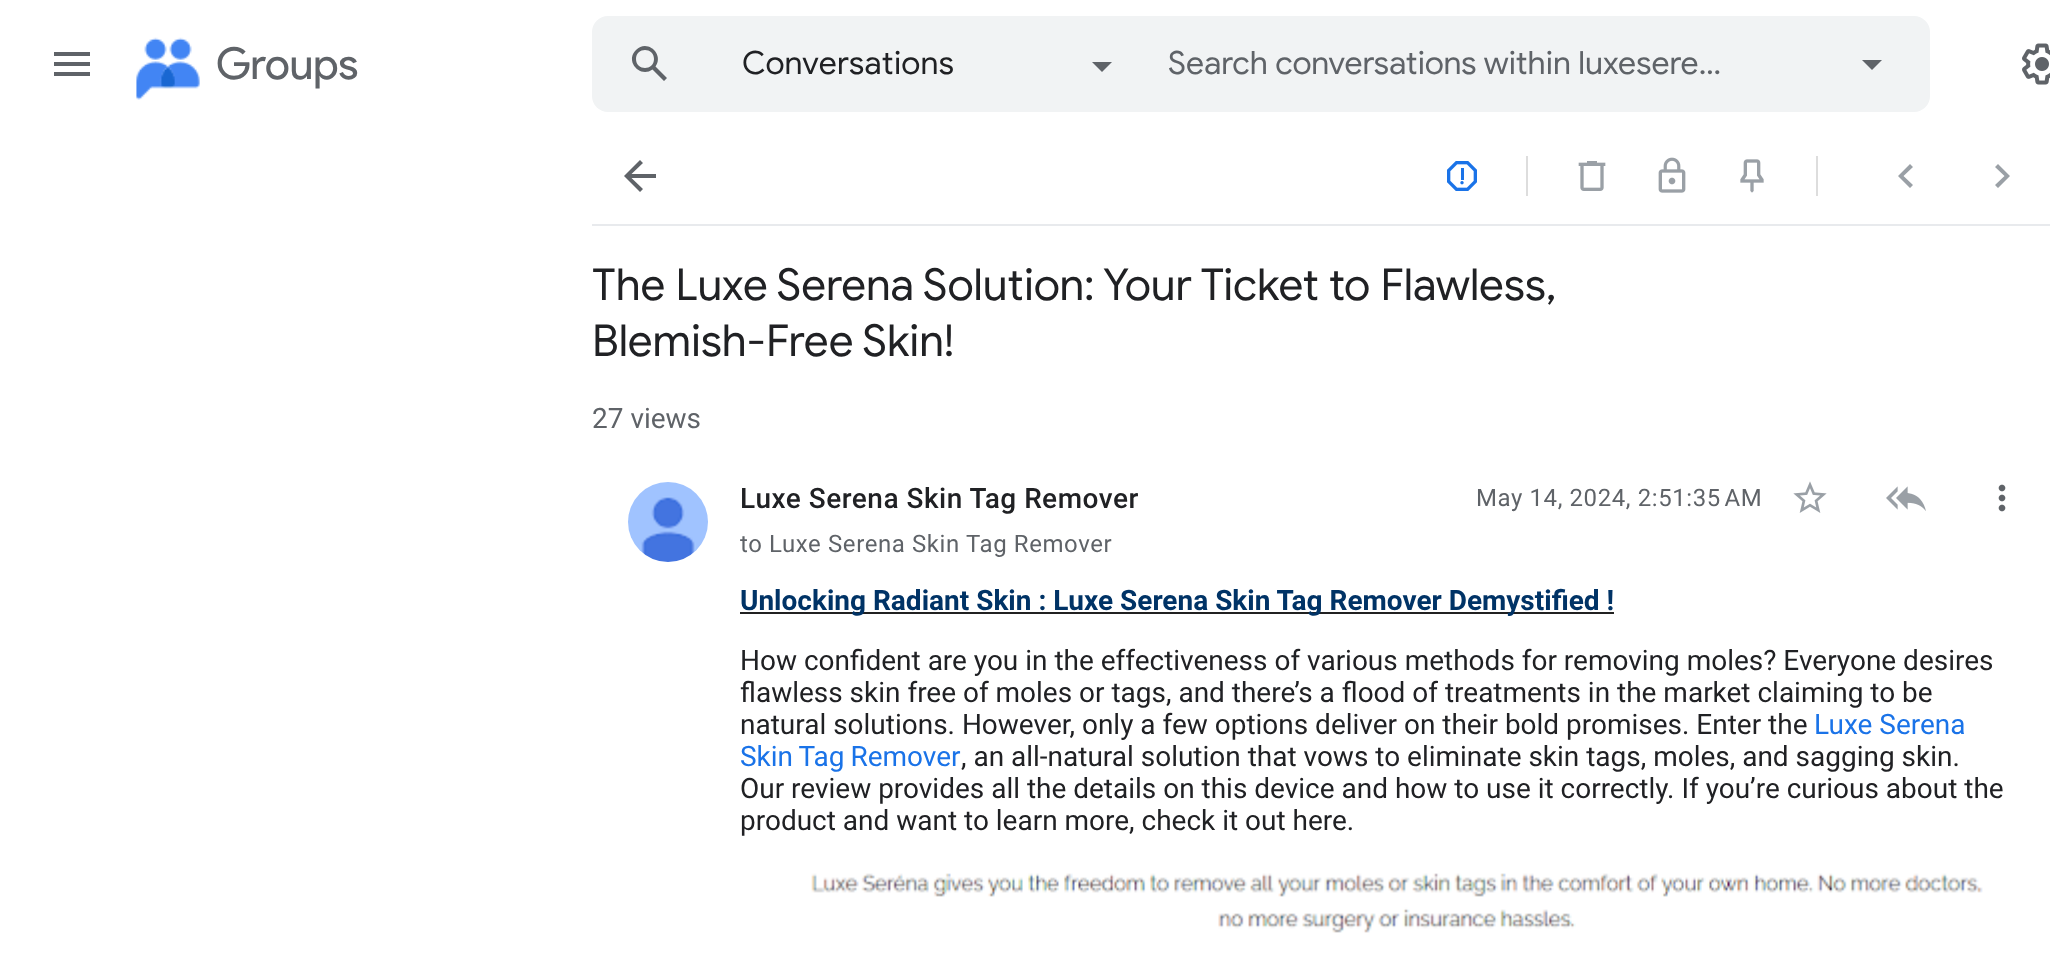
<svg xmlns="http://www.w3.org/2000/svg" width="2050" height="969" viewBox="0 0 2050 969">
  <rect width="100%" height="100%" fill="#ffffff"/>
  <path d="M54 76H90V72H54ZM54 66H90V62H54ZM54 52V56H90V52Z" fill="#5f6368"/>
  <image x="136" y="37" width="64" height="63" href="img1.png"/>
  <text x="216" y="79" font-family="Product Sans" font-size="44" fill="#5f6368">Groups</text>
  <rect x="592" y="16" width="1338" height="96" rx="16" fill="#f1f3f4"/>
  <path d="M667 78L655.5 66.5C664.5 54 647 38.5 636 50C624.5 61 640 78.5 652.5 69.5L664 81ZM636 59C636 47 654 47 654 59C654 71 636 71 636 59Z" fill="#5f6368"/>
  <text x="742" y="74" font-family="Google Sans" font-size="32" letter-spacing="0.4" fill="#202124">Conversations</text>
  <path d="M1092 62H1112L1102 72Z" fill="#5f6368"/>
  <text x="1168" y="74" font-family="Google Sans" font-size="32" fill="#5f6368">Search conversations within luxesere…</text>
  <path d="M1862 60L1872 70L1882 60Z" fill="#5f6368"/>
  <image x="2022" y="43" width="28" height="42" href="img2.png"/>
  <rect x="592" y="224" width="1458" height="2" fill="#e8eaed"/>
  <path d="M656 174V178H631.5L643 189L640 192L624 176L640 160L643 163L631.5 174Z" fill="#5f6368"/>
  <image x="1447" y="161" width="30" height="30" href="img3.png"/>
  <rect x="1526" y="156" width="2" height="40" fill="#dddddd"/>
  <image x="1578" y="161" width="28" height="30" href="img4.png"/>
  <image x="1658" y="157" width="28" height="36" href="img5.png"/>
  <image x="1740" y="159" width="24" height="34" href="img6.png"/>
  <rect x="1816" y="156" width="2" height="40" fill="#dddddd"/>
  <path d="M1913 167L1903.5 176L1913 185L1910 188L1898 176L1910 164Z" fill="#9aa0a6"/>
  <path d="M1998 164L2010 176L1998 188L1995 185L2004.5 176L1995 167Z" fill="#9aa0a6"/>
  <text x="592" y="300" font-family="Google Sans" font-size="44" fill="#202124">The Luxe Serena Solution: Your Ticket to Flawless,</text>
  <text x="592" y="356" font-family="Google Sans" font-size="44" fill="#202124">Blemish-Free Skin!</text>
  <text x="592" y="428" font-family="Roboto" font-size="28" fill="#5f6368">27 views</text>
  <image x="628" y="482" width="80" height="80" href="img7.png"/>
  <text x="740" y="508" font-family="Roboto" font-size="28" font-weight="500" letter-spacing="0.5" fill="#202124">Luxe Serena Skin Tag Remover</text>
  <text x="1476" y="506" font-family="Roboto" font-size="24" letter-spacing="0.6" fill="#5f6368">May 14, 2024, 2:51:35 AM</text>
  <image x="1793" y="481" width="34" height="32" href="img8.png"/>
  <image x="1886" y="486" width="40" height="25" href="img9.png"/>
  <image x="1998" y="484" width="8" height="28" href="img10.png"/>
  <text x="740" y="552" font-family="Roboto" font-size="24" letter-spacing="0.6" fill="#5f6368">to Luxe Serena Skin Tag Remover</text>
  <rect x="740" y="612" width="874" height="2" fill="#212121"/>
  <text x="740" y="610" font-family="Roboto" font-size="28" font-weight="bold" fill="#003366">Unlocking Radiant Skin : Luxe Serena Skin Tag Remover Demystified !</text>
  <text x="740" y="670" font-family="Roboto" font-size="28" fill="#202124">How confident are you in the effectiveness of various methods for removing moles? Everyone desires</text>
  <text x="740" y="702" font-family="Roboto" font-size="28" fill="#202124">flawless skin free of moles or tags, and there’s a flood of treatments in the market claiming to be</text>
  <text x="740" y="734" font-family="Roboto" font-size="28" fill="#202124">natural solutions. However, only a few options deliver on their bold promises. Enter the</text>
  <text x="1814" y="734" font-family="Roboto" font-size="28" fill="#1a73e8">Luxe Serena</text>
  <text x="740" y="766" word-spacing="-1" font-family="Roboto" font-size="28" fill="#1a73e8">Skin Tag Remover</text>
  <text x="961" y="766" font-family="Roboto" font-size="28" fill="#202124">, an all-natural solution that vows to eliminate skin tags, moles, and sagging skin.</text>
  <text x="740" y="798" font-family="Roboto" font-size="28" fill="#202124">Our review provides all the details on this device and how to use it correctly. If you’re curious about the</text>
  <text x="740" y="830" font-family="Roboto" font-size="28" fill="#202124">product and want to learn more, check it out here.</text>
  <image x="811" y="873" width="1172" height="60" href="img11.png"/>
</svg>
